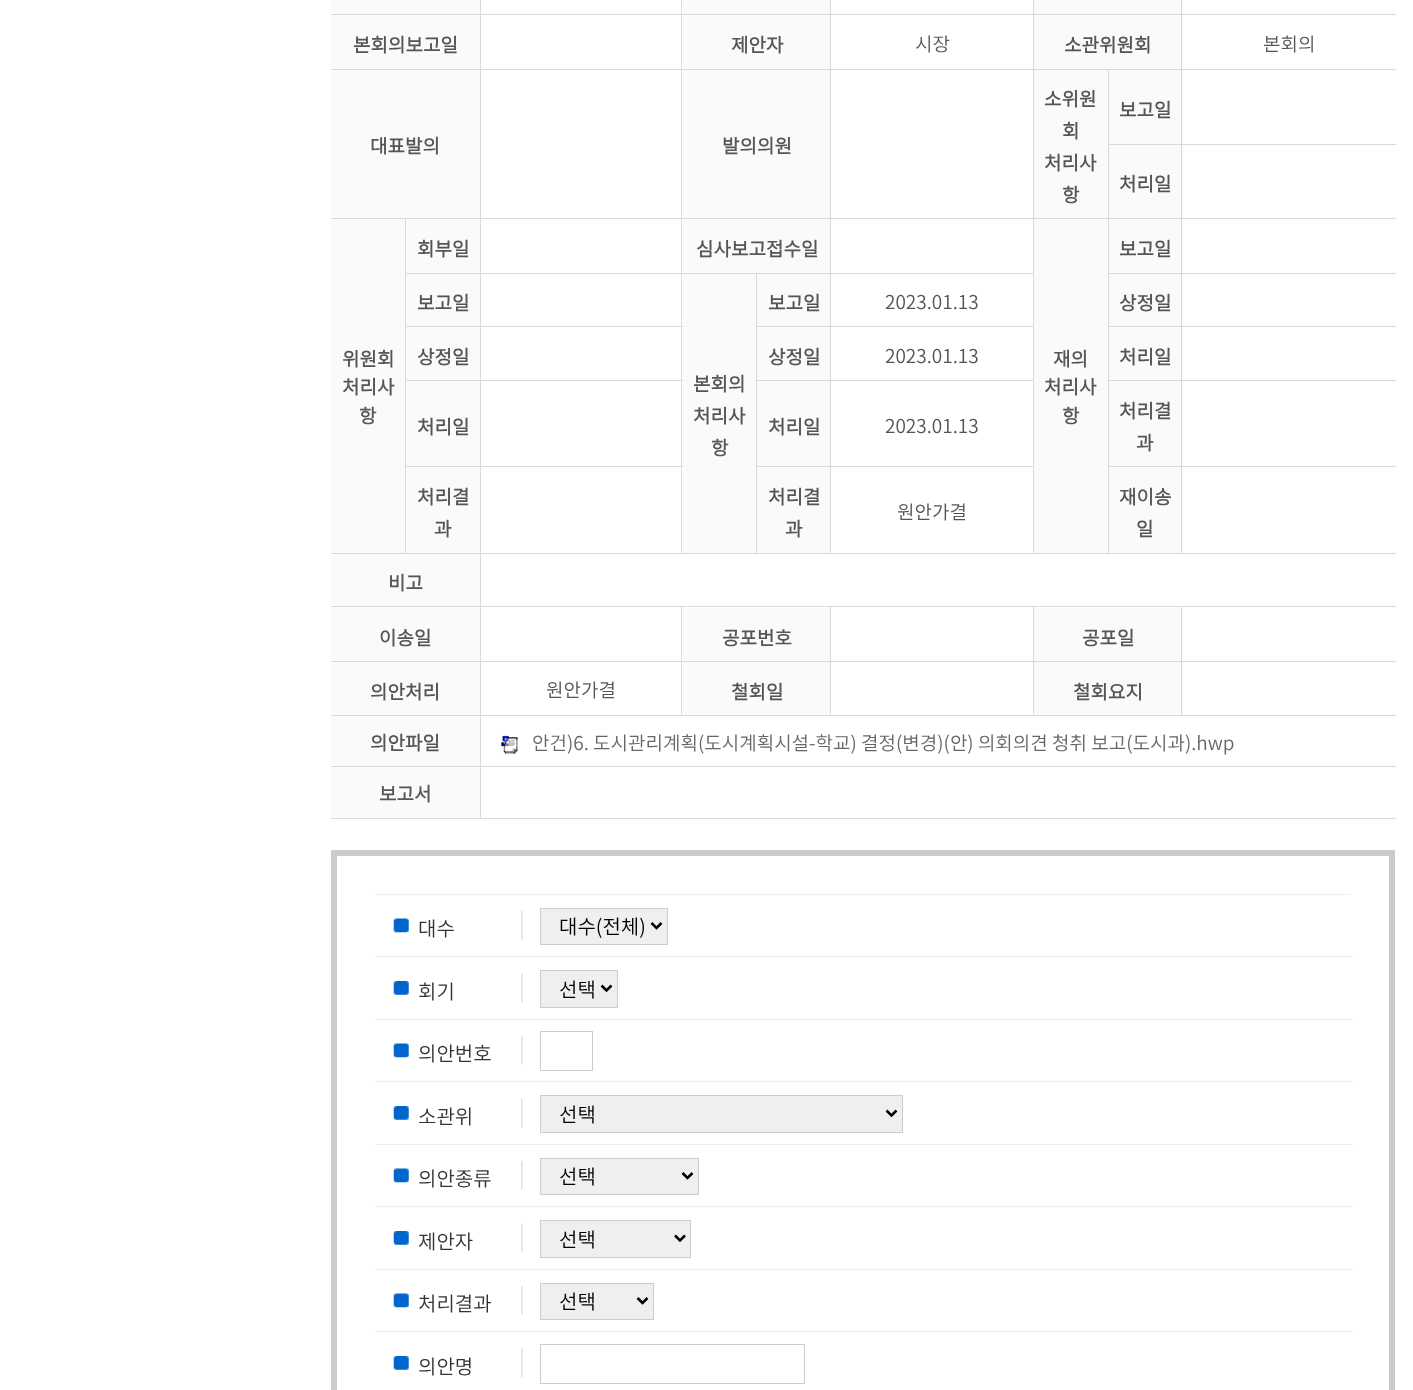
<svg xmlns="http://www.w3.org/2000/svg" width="1413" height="1390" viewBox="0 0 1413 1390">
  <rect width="100%" height="100%" fill="#ffffff"/>
  <rect x="331" y="0" width="149" height="14" fill="#fafafa"/>
  <rect x="1034" y="0" width="149" height="14" fill="#fafafa"/>
  <rect x="1034" y="15" width="149" height="54" fill="#fafafa"/>
  <rect x="1109" y="70" width="74" height="74" fill="#fafafa"/>
  <rect x="1109" y="145" width="74" height="73" fill="#fafafa"/>
  <rect x="1109" y="219" width="74" height="54" fill="#fafafa"/>
  <rect x="1109" y="274" width="74" height="106" fill="#fafafa"/>
  <rect x="1109" y="381" width="74" height="172" fill="#fafafa"/>
  <rect x="1181" y="553" width="215" height="1" fill="#d9d9d9"/>
  <rect x="1181" y="466" width="1" height="88" fill="#d9d9d9"/>
  <rect x="1181" y="466" width="215" height="1" fill="#d9d9d9"/>
  <rect x="1181" y="380" width="1" height="88" fill="#d9d9d9"/>
  <rect x="1181" y="380" width="215" height="1" fill="#d9d9d9"/>
  <rect x="1181" y="326" width="1" height="55" fill="#d9d9d9"/>
  <rect x="1181" y="326" width="215" height="1" fill="#d9d9d9"/>
  <rect x="1181" y="273" width="1" height="55" fill="#d9d9d9"/>
  <rect x="1181" y="273" width="215" height="1" fill="#d9d9d9"/>
  <rect x="1181" y="218" width="1" height="56" fill="#d9d9d9"/>
  <rect x="1181" y="218" width="215" height="1" fill="#d9d9d9"/>
  <rect x="1181" y="144" width="1" height="75" fill="#d9d9d9"/>
  <rect x="1181" y="144" width="215" height="1" fill="#d9d9d9"/>
  <rect x="1181" y="69" width="1" height="76" fill="#d9d9d9"/>
  <rect x="1181" y="69" width="215" height="1" fill="#d9d9d9"/>
  <rect x="1181" y="14" width="1" height="56" fill="#d9d9d9"/>
  <rect x="1181" y="14" width="215" height="1" fill="#d9d9d9"/>
  <rect x="1181" y="0" width="1" height="15" fill="#d9d9d9"/>
  <rect x="1108" y="144" width="75" height="1" fill="#d9d9d9"/>
  <rect x="1108" y="273" width="75" height="1" fill="#d9d9d9"/>
  <rect x="1108" y="326" width="75" height="1" fill="#d9d9d9"/>
  <rect x="1108" y="380" width="75" height="1" fill="#d9d9d9"/>
  <rect x="1108" y="466" width="75" height="1" fill="#d9d9d9"/>
  <rect x="1108" y="553" width="75" height="1" fill="#d9d9d9"/>
  <rect x="1108" y="218" width="1" height="336" fill="#d9d9d9"/>
  <rect x="1108" y="218" width="75" height="1" fill="#d9d9d9"/>
  <rect x="1108" y="69" width="1" height="150" fill="#d9d9d9"/>
  <rect x="1033" y="218" width="1" height="336" fill="#d9d9d9"/>
  <rect x="1033" y="218" width="76" height="1" fill="#d9d9d9"/>
  <rect x="1033" y="69" width="1" height="150" fill="#d9d9d9"/>
  <rect x="1033" y="69" width="150" height="1" fill="#d9d9d9"/>
  <rect x="1033" y="14" width="1" height="56" fill="#d9d9d9"/>
  <rect x="1033" y="14" width="150" height="1" fill="#d9d9d9"/>
  <rect x="1033" y="0" width="1" height="15" fill="#d9d9d9"/>
  <rect x="830" y="553" width="204" height="1" fill="#d9d9d9"/>
  <rect x="830" y="466" width="1" height="88" fill="#d9d9d9"/>
  <rect x="830" y="466" width="204" height="1" fill="#d9d9d9"/>
  <rect x="830" y="380" width="1" height="88" fill="#d9d9d9"/>
  <rect x="830" y="380" width="204" height="1" fill="#d9d9d9"/>
  <rect x="830" y="326" width="1" height="55" fill="#d9d9d9"/>
  <rect x="830" y="326" width="204" height="1" fill="#d9d9d9"/>
  <rect x="830" y="273" width="1" height="55" fill="#d9d9d9"/>
  <rect x="830" y="273" width="204" height="1" fill="#d9d9d9"/>
  <rect x="830" y="218" width="1" height="56" fill="#d9d9d9"/>
  <rect x="830" y="218" width="204" height="1" fill="#d9d9d9"/>
  <rect x="830" y="69" width="1" height="150" fill="#d9d9d9"/>
  <rect x="830" y="69" width="204" height="1" fill="#d9d9d9"/>
  <rect x="830" y="14" width="1" height="56" fill="#d9d9d9"/>
  <rect x="830" y="14" width="204" height="1" fill="#d9d9d9"/>
  <rect x="830" y="0" width="1" height="15" fill="#d9d9d9"/>
  <rect x="757" y="274" width="73" height="106" fill="#fafafa"/>
  <rect x="756" y="326" width="75" height="1" fill="#d9d9d9"/>
  <rect x="756" y="380" width="75" height="1" fill="#d9d9d9"/>
  <rect x="757" y="381" width="73" height="172" fill="#fafafa"/>
  <rect x="756" y="466" width="75" height="1" fill="#d9d9d9"/>
  <rect x="756" y="553" width="75" height="1" fill="#d9d9d9"/>
  <rect x="756" y="273" width="1" height="281" fill="#d9d9d9"/>
  <rect x="681" y="273" width="1" height="281" fill="#d9d9d9"/>
  <rect x="681" y="273" width="150" height="1" fill="#d9d9d9"/>
  <rect x="681" y="218" width="1" height="56" fill="#d9d9d9"/>
  <rect x="681" y="218" width="150" height="1" fill="#d9d9d9"/>
  <rect x="681" y="69" width="1" height="150" fill="#d9d9d9"/>
  <rect x="681" y="69" width="150" height="1" fill="#d9d9d9"/>
  <rect x="681" y="14" width="1" height="56" fill="#d9d9d9"/>
  <rect x="681" y="14" width="150" height="1" fill="#d9d9d9"/>
  <rect x="681" y="0" width="1" height="15" fill="#d9d9d9"/>
  <rect x="1034" y="608" width="149" height="53" fill="#fafafa"/>
  <rect x="1034" y="662" width="149" height="53" fill="#fafafa"/>
  <rect x="1181" y="715" width="215" height="1" fill="#d9d9d9"/>
  <rect x="1181" y="661" width="1" height="55" fill="#d9d9d9"/>
  <rect x="1181" y="661" width="215" height="1" fill="#d9d9d9"/>
  <rect x="1181" y="606" width="1" height="57" fill="#d9d9d9"/>
  <rect x="1033" y="715" width="150" height="1" fill="#d9d9d9"/>
  <rect x="1033" y="661" width="1" height="55" fill="#d9d9d9"/>
  <rect x="1033" y="661" width="150" height="1" fill="#d9d9d9"/>
  <rect x="1033" y="606" width="1" height="57" fill="#d9d9d9"/>
  <rect x="830" y="715" width="204" height="1" fill="#d9d9d9"/>
  <rect x="830" y="661" width="1" height="55" fill="#d9d9d9"/>
  <rect x="830" y="661" width="204" height="1" fill="#d9d9d9"/>
  <rect x="830" y="606" width="1" height="57" fill="#d9d9d9"/>
  <rect x="681" y="715" width="150" height="1" fill="#d9d9d9"/>
  <rect x="681" y="661" width="1" height="55" fill="#d9d9d9"/>
  <rect x="681" y="661" width="150" height="1" fill="#d9d9d9"/>
  <rect x="681" y="606" width="1" height="57" fill="#d9d9d9"/>
  <rect x="480" y="818" width="916" height="1" fill="#d9d9d9"/>
  <rect x="480" y="766" width="1" height="53" fill="#d9d9d9"/>
  <rect x="480" y="766" width="916" height="1" fill="#d9d9d9"/>
  <rect x="480" y="715" width="1" height="53" fill="#d9d9d9"/>
  <rect x="480" y="715" width="203" height="1" fill="#d9d9d9"/>
  <rect x="480" y="661" width="1" height="55" fill="#d9d9d9"/>
  <rect x="480" y="661" width="203" height="1" fill="#d9d9d9"/>
  <rect x="480" y="606" width="1" height="57" fill="#d9d9d9"/>
  <rect x="480" y="606" width="916" height="1" fill="#d9d9d9"/>
  <rect x="480" y="553" width="1" height="55" fill="#d9d9d9"/>
  <rect x="480" y="553" width="203" height="1" fill="#d9d9d9"/>
  <rect x="480" y="466" width="1" height="88" fill="#d9d9d9"/>
  <rect x="480" y="466" width="203" height="1" fill="#d9d9d9"/>
  <rect x="480" y="380" width="1" height="88" fill="#d9d9d9"/>
  <rect x="480" y="380" width="203" height="1" fill="#d9d9d9"/>
  <rect x="480" y="326" width="1" height="55" fill="#d9d9d9"/>
  <rect x="480" y="326" width="203" height="1" fill="#d9d9d9"/>
  <rect x="480" y="273" width="1" height="55" fill="#d9d9d9"/>
  <rect x="480" y="273" width="203" height="1" fill="#d9d9d9"/>
  <rect x="480" y="218" width="1" height="56" fill="#d9d9d9"/>
  <rect x="480" y="218" width="203" height="1" fill="#d9d9d9"/>
  <rect x="480" y="69" width="1" height="150" fill="#d9d9d9"/>
  <rect x="480" y="69" width="203" height="1" fill="#d9d9d9"/>
  <rect x="480" y="14" width="1" height="56" fill="#d9d9d9"/>
  <rect x="480" y="14" width="203" height="1" fill="#d9d9d9"/>
  <rect x="480" y="0" width="1" height="15" fill="#d9d9d9"/>
  <rect x="331" y="14" width="150" height="1" fill="#d9d9d9"/>
  <rect x="683" y="0" width="147" height="14" fill="#fafafa"/>
  <rect x="331" y="15" width="149" height="54" fill="#fafafa"/>
  <rect x="331" y="69" width="150" height="1" fill="#d9d9d9"/>
  <text x="353" y="52" font-family="Noto Sans KR" font-size="19" font-weight="bold" fill="#555555">본회의보고일</text>
  <rect x="683" y="15" width="147" height="54" fill="#fafafa"/>
  <text x="731" y="52" font-family="Noto Sans KR" font-size="19" font-weight="bold" fill="#555555">제안자</text>
  <text x="915" y="51" font-family="Noto Sans KR" font-size="19" font-weight="300" fill="#555555">시장</text>
  <text x="1064" y="52" font-family="Noto Sans KR" font-size="19" font-weight="bold" fill="#555555">소관위원회</text>
  <text x="1263" y="51" font-family="Noto Sans KR" font-size="19" font-weight="300" fill="#555555">본회의</text>
  <rect x="1034" y="70" width="74" height="148" fill="#fafafa"/>
  <text x="1044" y="106" font-family="Noto Sans KR" font-size="19" font-weight="bold" fill="#555555">소위원</text>
  <text x="1062" y="138" font-family="Noto Sans KR" font-size="19" font-weight="bold" fill="#555555">회</text>
  <text x="1044" y="170" font-family="Noto Sans KR" font-size="19" font-weight="bold" fill="#555555">처리사</text>
  <text x="1062" y="202" font-family="Noto Sans KR" font-size="19" font-weight="bold" fill="#555555">항</text>
  <text x="1119" y="117" font-family="Noto Sans KR" font-size="19" font-weight="bold" fill="#555555">보고일</text>
  <rect x="331" y="70" width="149" height="148" fill="#fafafa"/>
  <rect x="405" y="273" width="76" height="1" fill="#d9d9d9"/>
  <rect x="406" y="274" width="74" height="106" fill="#fafafa"/>
  <rect x="405" y="326" width="76" height="1" fill="#d9d9d9"/>
  <rect x="405" y="380" width="76" height="1" fill="#d9d9d9"/>
  <rect x="406" y="381" width="74" height="172" fill="#fafafa"/>
  <rect x="405" y="466" width="76" height="1" fill="#d9d9d9"/>
  <rect x="405" y="553" width="76" height="1" fill="#d9d9d9"/>
  <rect x="405" y="218" width="1" height="336" fill="#d9d9d9"/>
  <rect x="331" y="218" width="150" height="1" fill="#d9d9d9"/>
  <text x="370" y="153" font-family="Noto Sans KR" font-size="19" font-weight="bold" fill="#555555">대표발의</text>
  <rect x="683" y="70" width="147" height="148" fill="#fafafa"/>
  <text x="722" y="153" font-family="Noto Sans KR" font-size="19" font-weight="bold" fill="#555555">발의의원</text>
  <text x="1119" y="191" font-family="Noto Sans KR" font-size="19" font-weight="bold" fill="#555555">처리일</text>
  <rect x="406" y="219" width="74" height="54" fill="#fafafa"/>
  <text x="417" y="256" font-family="Noto Sans KR" font-size="19" font-weight="bold" fill="#555555">회부일</text>
  <rect x="683" y="219" width="147" height="54" fill="#fafafa"/>
  <text x="696" y="256" font-family="Noto Sans KR" font-size="19" font-weight="bold" fill="#555555">심사보고접수일</text>
  <text x="1119" y="256" font-family="Noto Sans KR" font-size="19" font-weight="bold" fill="#555555">보고일</text>
  <rect x="331" y="219" width="74" height="334" fill="#fafafa"/>
  <rect x="331" y="553" width="75" height="1" fill="#d9d9d9"/>
  <text x="342" y="366" font-family="Noto Sans KR" font-size="19" font-weight="bold" fill="#555555">위원회</text>
  <text x="342" y="394" font-family="Noto Sans KR" font-size="19" font-weight="bold" fill="#555555">처리사</text>
  <text x="359" y="423" font-family="Noto Sans KR" font-size="19" font-weight="bold" fill="#555555">항</text>
  <rect x="1034" y="219" width="74" height="334" fill="#fafafa"/>
  <rect x="1033" y="553" width="76" height="1" fill="#d9d9d9"/>
  <text x="1053" y="366" font-family="Noto Sans KR" font-size="19" font-weight="bold" fill="#555555">재의</text>
  <text x="1044" y="394" font-family="Noto Sans KR" font-size="19" font-weight="bold" fill="#555555">처리사</text>
  <text x="1062" y="423" font-family="Noto Sans KR" font-size="19" font-weight="bold" fill="#555555">항</text>
  <text x="417" y="310" font-family="Noto Sans KR" font-size="19" font-weight="bold" fill="#555555">보고일</text>
  <text x="768" y="310" font-family="Noto Sans KR" font-size="19" font-weight="bold" fill="#555555">보고일</text>
  <text x="885" y="309" font-family="Noto Sans KR" font-size="19" font-weight="300" fill="#555555">2023.01.13</text>
  <text x="1119" y="310" font-family="Noto Sans KR" font-size="19" font-weight="bold" fill="#555555">상정일</text>
  <rect x="683" y="274" width="73" height="279" fill="#fafafa"/>
  <rect x="681" y="553" width="77" height="1" fill="#d9d9d9"/>
  <text x="693" y="391" font-family="Noto Sans KR" font-size="19" font-weight="bold" fill="#555555">본회의</text>
  <text x="693" y="423" font-family="Noto Sans KR" font-size="19" font-weight="bold" fill="#555555">처리사</text>
  <text x="711" y="455" font-family="Noto Sans KR" font-size="19" font-weight="bold" fill="#555555">항</text>
  <text x="417" y="364" font-family="Noto Sans KR" font-size="19" font-weight="bold" fill="#555555">상정일</text>
  <text x="768" y="364" font-family="Noto Sans KR" font-size="19" font-weight="bold" fill="#555555">상정일</text>
  <text x="885" y="363" font-family="Noto Sans KR" font-size="19" font-weight="300" fill="#555555">2023.01.13</text>
  <text x="1119" y="364" font-family="Noto Sans KR" font-size="19" font-weight="bold" fill="#555555">처리일</text>
  <text x="417" y="434" font-family="Noto Sans KR" font-size="19" font-weight="bold" fill="#555555">처리일</text>
  <text x="768" y="434" font-family="Noto Sans KR" font-size="19" font-weight="bold" fill="#555555">처리일</text>
  <text x="885" y="433" font-family="Noto Sans KR" font-size="19" font-weight="300" fill="#555555">2023.01.13</text>
  <text x="1119" y="418" font-family="Noto Sans KR" font-size="19" font-weight="bold" fill="#555555">처리결</text>
  <text x="1136" y="450" font-family="Noto Sans KR" font-size="19" font-weight="bold" fill="#555555">과</text>
  <text x="417" y="504" font-family="Noto Sans KR" font-size="19" font-weight="bold" fill="#555555">처리결</text>
  <text x="434" y="536" font-family="Noto Sans KR" font-size="19" font-weight="bold" fill="#555555">과</text>
  <text x="768" y="504" font-family="Noto Sans KR" font-size="19" font-weight="bold" fill="#555555">처리결</text>
  <text x="785" y="536" font-family="Noto Sans KR" font-size="19" font-weight="bold" fill="#555555">과</text>
  <text x="897" y="519" font-family="Noto Sans KR" font-size="19" font-weight="300" fill="#555555">원안가결</text>
  <text x="1119" y="504" font-family="Noto Sans KR" font-size="19" font-weight="bold" fill="#555555">재이송</text>
  <text x="1136" y="536" font-family="Noto Sans KR" font-size="19" font-weight="bold" fill="#555555">일</text>
  <rect x="331" y="554" width="149" height="107" fill="#fafafa"/>
  <rect x="331" y="606" width="150" height="1" fill="#d9d9d9"/>
  <text x="388" y="590" font-family="Noto Sans KR" font-size="19" font-weight="bold" fill="#555555">비고</text>
  <rect x="331" y="661" width="150" height="1" fill="#d9d9d9"/>
  <text x="379" y="645" font-family="Noto Sans KR" font-size="19" font-weight="bold" fill="#555555">이송일</text>
  <rect x="683" y="608" width="147" height="53" fill="#fafafa"/>
  <text x="722" y="645" font-family="Noto Sans KR" font-size="19" font-weight="bold" fill="#555555">공포번호</text>
  <text x="1082" y="645" font-family="Noto Sans KR" font-size="19" font-weight="bold" fill="#555555">공포일</text>
  <rect x="331" y="662" width="149" height="53" fill="#fafafa"/>
  <rect x="331" y="715" width="150" height="1" fill="#d9d9d9"/>
  <text x="370" y="699" font-family="Noto Sans KR" font-size="19" font-weight="bold" fill="#555555">의안처리</text>
  <text x="546" y="697" font-family="Noto Sans KR" font-size="19" font-weight="300" fill="#555555">원안가결</text>
  <rect x="683" y="662" width="147" height="53" fill="#fafafa"/>
  <text x="731" y="699" font-family="Noto Sans KR" font-size="19" font-weight="bold" fill="#555555">철회일</text>
  <text x="1073" y="699" font-family="Noto Sans KR" font-size="19" font-weight="bold" fill="#555555">철회요지</text>
  <rect x="331" y="716" width="149" height="102" fill="#fafafa"/>
  <rect x="331" y="766" width="150" height="1" fill="#d9d9d9"/>
  <text x="370" y="750" font-family="Noto Sans KR" font-size="19" font-weight="bold" fill="#555555">의안파일</text>
  <image x="501" y="735" width="17" height="19" href="img1.png"/>
  <text x="532" y="750" font-family="Noto Sans KR" font-size="19" font-weight="300" fill="#666666">안건)6. 도시관리계획(도시계획시설-학교) 결정(변경)(안) 의회의견 청취 보고(도시과).hwp</text>
  <rect x="331" y="818" width="150" height="1" fill="#d9d9d9"/>
  <text x="379" y="801" font-family="Noto Sans KR" font-size="19" font-weight="bold" fill="#555555">보고서</text>
  <rect x="334" y="853" width="1058" height="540" fill="none" stroke="#cccccc" stroke-width="6"/>
  <rect x="375" y="894" width="976" height="1" fill="#eeeeee"/>
  <image x="393" y="918" width="16" height="15" href="img2.png"/>
  <text x="418" y="936" font-family="Noto Sans KR" font-size="20" font-weight="300" fill="#333333">대수</text>
  <image x="521" y="911" width="2" height="29" href="img3.png"/>
  <rect x="375" y="956" width="978" height="1" fill="#eeeeee"/>
  <rect x="540.5" y="908.5" width="127" height="36" fill="#efefef" stroke="#cccccc"/>
  <path d="M651.5 923L656.5 928L661.5 923" fill="none" stroke="#000000" stroke-width="2.5"/>
  <text x="559" y="934" font-family="Noto Sans KR" font-size="20" font-weight="300" fill="#000000">대수(전체)</text>
  <image x="393" y="981" width="16" height="14" href="img4.png"/>
  <text x="418" y="999" font-family="Noto Sans KR" font-size="20" font-weight="300" fill="#333333">회기</text>
  <image x="521" y="973" width="2" height="30" href="img5.png"/>
  <rect x="375" y="1019" width="978" height="1" fill="#eeeeee"/>
  <rect x="540.5" y="970.5" width="77" height="37" fill="#efefef" stroke="#cccccc"/>
  <path d="M601.5 985.5L606.5 990.5L611.5 985.5" fill="none" stroke="#000000" stroke-width="2.5"/>
  <text x="559" y="997" font-family="Noto Sans KR" font-size="20" font-weight="300" fill="#000000">선택</text>
  <image x="521" y="1036" width="2" height="29" href="img3.png"/>
  <rect x="375" y="1081" width="978" height="1" fill="#eeeeee"/>
  <rect x="540.5" y="1031.5" width="52" height="39" fill="none" stroke="#cccccc"/>
  <image x="393" y="1043" width="16" height="15" href="img2.png"/>
  <text x="418" y="1061" font-family="Noto Sans KR" font-size="20" font-weight="300" fill="#333333">의안번호</text>
  <image x="393" y="1106" width="16" height="14" href="img4.png"/>
  <text x="418" y="1124" font-family="Noto Sans KR" font-size="20" font-weight="300" fill="#333333">소관위</text>
  <image x="521" y="1098" width="2" height="30" href="img5.png"/>
  <rect x="375" y="1144" width="978" height="1" fill="#eeeeee"/>
  <rect x="540.5" y="1095.5" width="362" height="37" fill="#efefef" stroke="#cccccc"/>
  <path d="M886.5 1110.5L891.5 1115.5L896.5 1110.5" fill="none" stroke="#000000" stroke-width="2.5"/>
  <text x="559" y="1122" font-family="Noto Sans KR" font-size="20" font-weight="300" fill="#000000">선택</text>
  <image x="393" y="1168" width="16" height="15" href="img2.png"/>
  <text x="418" y="1186" font-family="Noto Sans KR" font-size="20" font-weight="300" fill="#333333">의안종류</text>
  <image x="521" y="1161" width="2" height="29" href="img3.png"/>
  <rect x="375" y="1206" width="978" height="1" fill="#eeeeee"/>
  <rect x="540.5" y="1158.5" width="158" height="36" fill="#efefef" stroke="#cccccc"/>
  <path d="M682.5 1173L687.5 1178L692.5 1173" fill="none" stroke="#000000" stroke-width="2.5"/>
  <text x="559" y="1184" font-family="Noto Sans KR" font-size="20" font-weight="300" fill="#000000">선택</text>
  <image x="393" y="1231" width="16" height="14" href="img4.png"/>
  <text x="418" y="1249" font-family="Noto Sans KR" font-size="20" font-weight="300" fill="#333333">제안자</text>
  <image x="521" y="1223" width="2" height="30" href="img5.png"/>
  <rect x="375" y="1269" width="978" height="1" fill="#eeeeee"/>
  <rect x="540.5" y="1220.5" width="150" height="37" fill="#efefef" stroke="#cccccc"/>
  <path d="M675 1235.5L680 1240.5L685 1235.5" fill="none" stroke="#000000" stroke-width="2.5"/>
  <text x="559" y="1247" font-family="Noto Sans KR" font-size="20" font-weight="300" fill="#000000">선택</text>
  <image x="393" y="1293" width="16" height="15" href="img2.png"/>
  <text x="418" y="1311" font-family="Noto Sans KR" font-size="20" font-weight="300" fill="#333333">처리결과</text>
  <image x="521" y="1286" width="2" height="29" href="img3.png"/>
  <rect x="375" y="1331" width="978" height="1" fill="#eeeeee"/>
  <rect x="540.5" y="1283.5" width="113" height="36" fill="#efefef" stroke="#cccccc"/>
  <path d="M637.5 1298L642.5 1303L647.5 1298" fill="none" stroke="#000000" stroke-width="2.5"/>
  <text x="559" y="1309" font-family="Noto Sans KR" font-size="20" font-weight="300" fill="#000000">선택</text>
  <image x="393" y="1356" width="16" height="14" href="img4.png"/>
  <text x="418" y="1374" font-family="Noto Sans KR" font-size="20" font-weight="300" fill="#333333">의안명</text>
  <image x="521" y="1348" width="2" height="30" href="img5.png"/>
  <rect x="540.5" y="1344.5" width="264" height="39" fill="none" stroke="#cccccc"/>
</svg>
